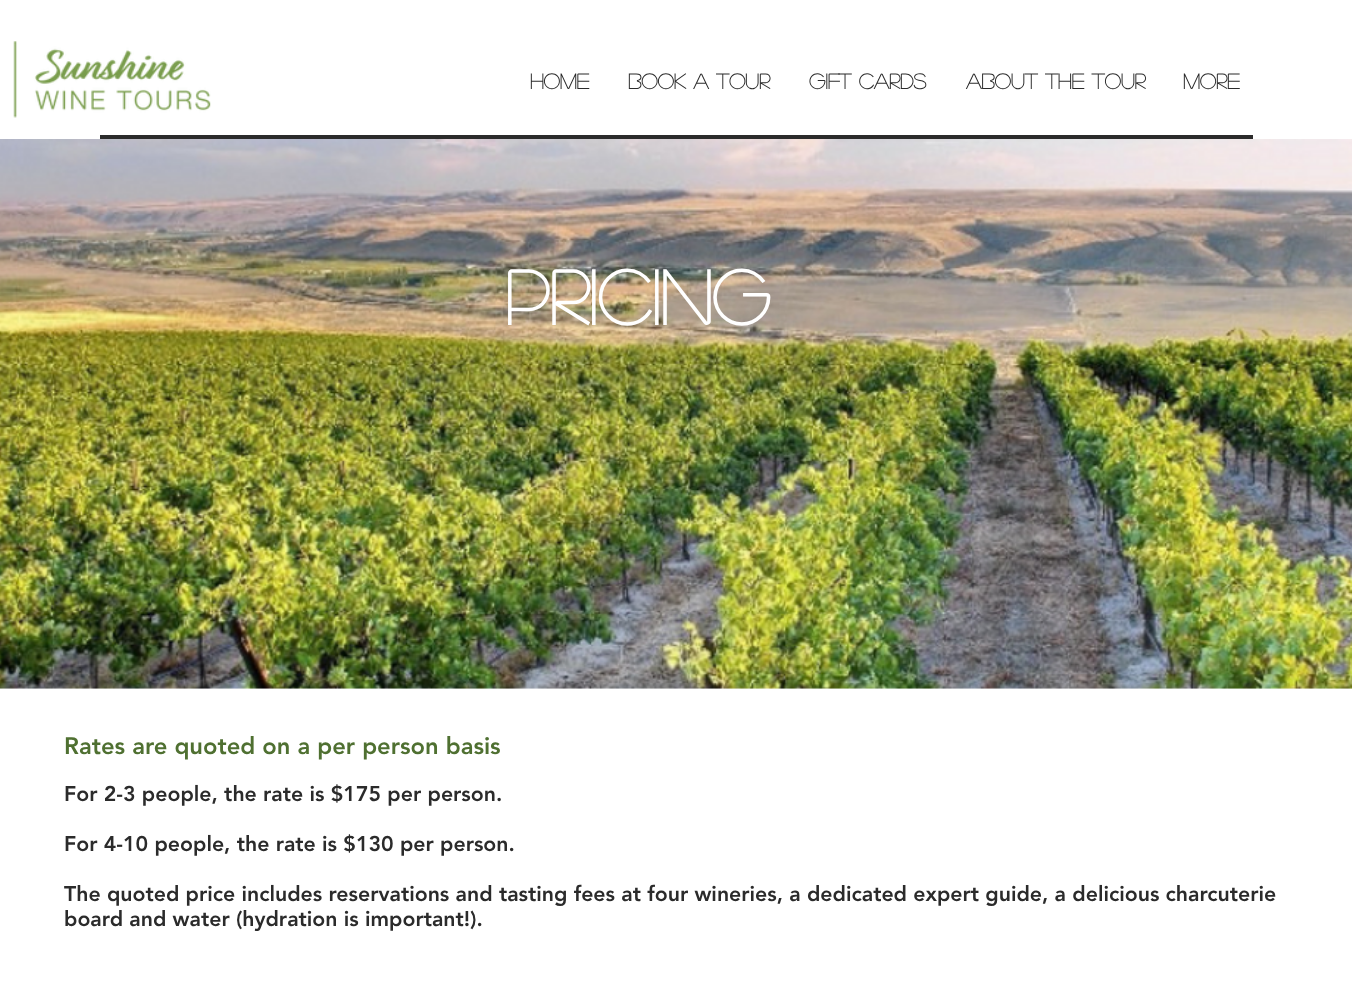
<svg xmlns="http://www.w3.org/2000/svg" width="1352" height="988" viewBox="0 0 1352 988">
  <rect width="100%" height="100%" fill="#ffffff"/>
  <image x="13" y="41" width="198" height="77" href="img1.png"/>
  <rect x="100" y="135" width="1153" height="4" fill="#2b2b2b"/>
  <text x="530" y="89" font-family="'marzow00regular'" font-size="21.25" font-weight="bold" fill="#2b2b2b">Home</text>
  <text x="628" y="89" font-family="'marzow00regular'" font-size="21.25" font-weight="bold" fill="#2b2b2b">Book a Tour</text>
  <text x="809" y="89" font-family="'marzow00regular'" font-size="21.25" font-weight="bold" fill="#2b2b2b">Gift Cards</text>
  <text x="966" y="89" font-family="'marzow00regular'" font-size="21.25" font-weight="bold" fill="#2b2b2b">About the Tour</text>
  <text x="1183" y="89" font-family="'marzow00regular'" font-size="21.25" font-weight="bold" fill="#2b2b2b">More</text>
  <image x="0" y="139" width="1352" height="550" href="img2.png"/>
  <text x="505" y="325" font-family="'marzow00regular'" font-size="76" font-weight="bold" fill="#ffffff">Pricing</text>
  <text x="64" y="754" font-family="'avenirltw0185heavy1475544'" font-size="23.75" font-weight="900" fill="#4f7031">Rates are quoted on a per person basis</text>
  <text x="64" y="801" font-family="'avenirltw0185heavy1475544'" font-size="21.25" font-weight="900" fill="#2b2b2b">For 2-3 people, the rate is $175 per person.</text>
  <text x="64" y="851" font-family="'avenirltw0185heavy1475544'" font-size="21.25" font-weight="900" fill="#2b2b2b">For 4-10 people, the rate is $130 per person.</text>
  <text x="64" y="901" font-family="'avenirltw0185heavy1475544'" font-size="21.25" font-weight="900" fill="#2b2b2b">The quoted price includes reservations and tasting fees at four wineries, a dedicated expert guide, a delicious charcuterie</text>
  <text x="64" y="926" font-family="'avenirltw0185heavy1475544'" font-size="21.25" font-weight="900" fill="#2b2b2b">board and water (hydration is important!).</text>
</svg>
